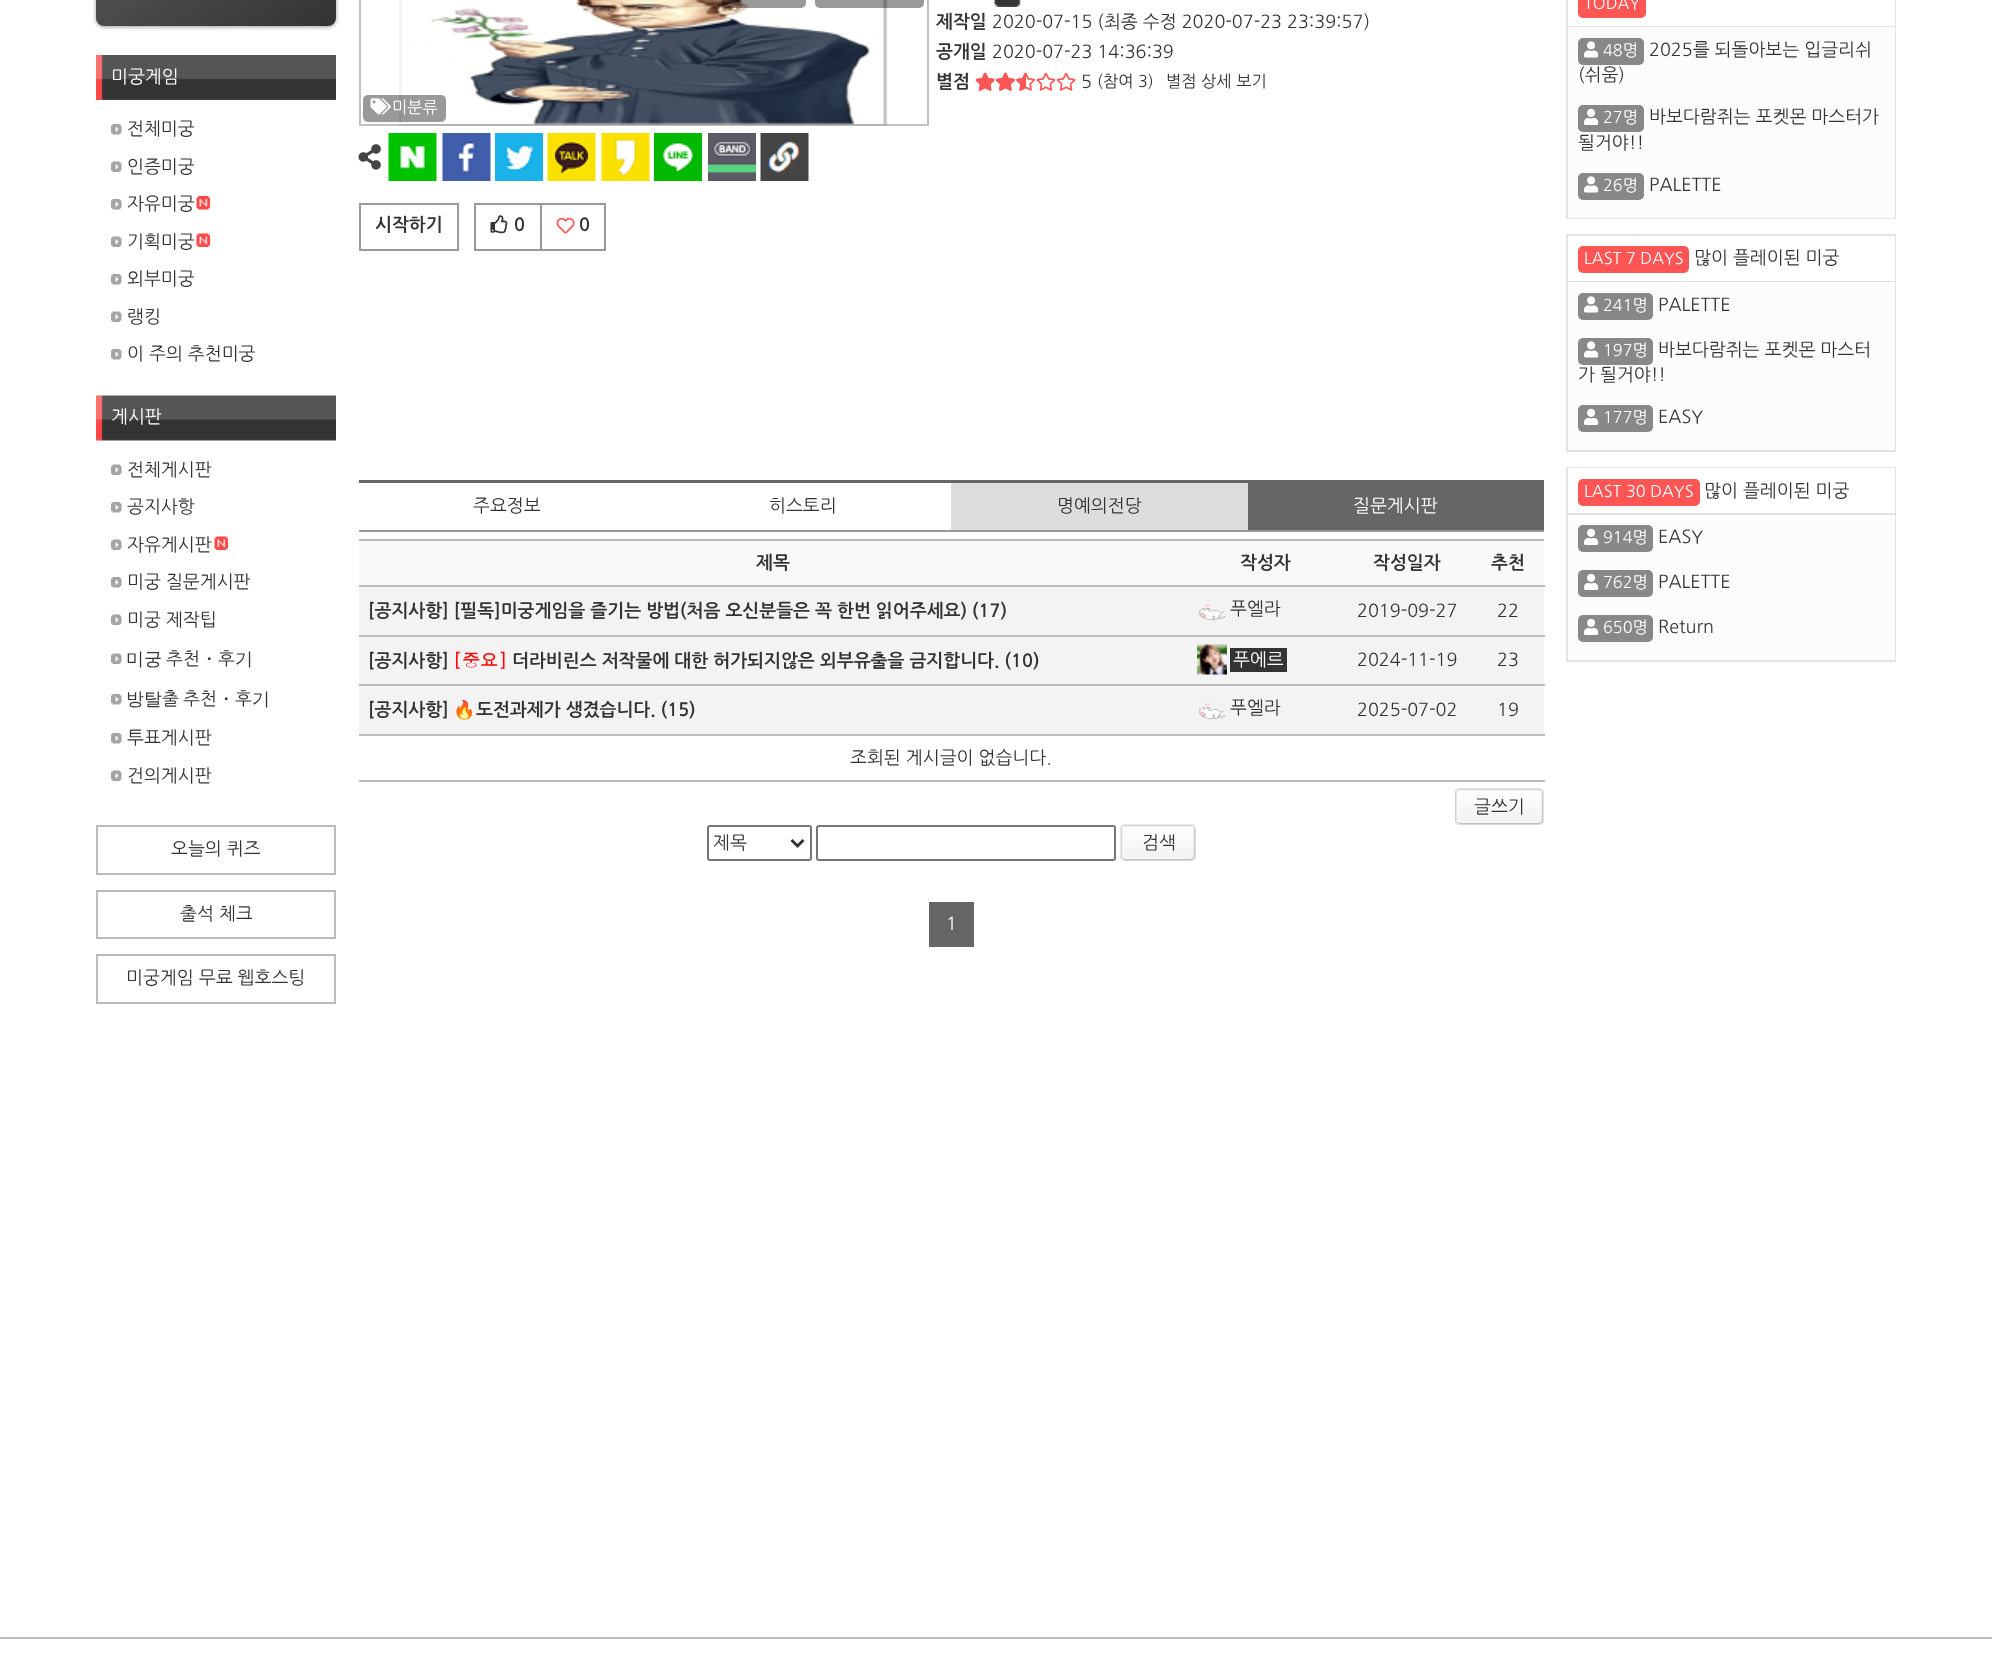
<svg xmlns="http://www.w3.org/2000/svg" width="1992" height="1655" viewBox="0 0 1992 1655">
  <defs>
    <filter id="blur1" x="-50%" y="-200%" width="200%" height="500%"><feGaussianBlur stdDeviation="2"/></filter>
    <linearGradient id="g1" gradientUnits="userSpaceOnUse" x1="159" y1="-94" x2="273" y2="70"><stop offset="0" stop-color="#555555"/><stop offset="1" stop-color="#333333"/></linearGradient>
  </defs>
  <rect width="100%" height="100%" fill="#ffffff"/>
  <rect x="96" y="-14" width="240" height="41" rx="8" fill="#000000" fill-opacity="0.4" filter="url(#blur1)"/>
  <rect x="96" y="-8" width="240" height="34" rx="8" fill="url(#g1)"/>
  <image x="96" y="55" width="240" height="45" href="img1.png"/>
  <text x="111" y="83" font-family="NanumGothic" font-size="18" fill="#ffffff">미궁게임</text>
  <image x="111" y="124" width="11" height="11" href="img2.png"/>
  <text x="127" y="135" font-family="NanumGothic" font-size="18" fill="#333333">전체미궁</text>
  <image x="111" y="161" width="11" height="11" href="img3.png"/>
  <text x="127" y="173" font-family="NanumGothic" font-size="18" fill="#333333">인증미궁</text>
  <image x="111" y="199" width="11" height="11" href="img2.png"/>
  <text x="127" y="210" font-family="NanumGothic" font-size="18" fill="#333333">자유미궁</text>
  <image x="196" y="196" width="14" height="14" href="img4.png"/>
  <image x="111" y="236" width="11" height="11" href="img3.png"/>
  <text x="127" y="248" font-family="NanumGothic" font-size="18" fill="#333333">기획미궁</text>
  <image x="196" y="233" width="14" height="14" href="img5.png"/>
  <image x="111" y="274" width="11" height="11" href="img2.png"/>
  <text x="127" y="285" font-family="NanumGothic" font-size="18" fill="#333333">외부미궁</text>
  <image x="111" y="311" width="11" height="11" href="img3.png"/>
  <text x="127" y="323" font-family="NanumGothic" font-size="18" fill="#333333">랭킹</text>
  <image x="111" y="349" width="11" height="11" href="img2.png"/>
  <text x="127" y="360" font-family="NanumGothic" font-size="18" fill="#333333">이 주의 추천미궁</text>
  <image x="96" y="395" width="240" height="46" href="img6.png"/>
  <text x="111" y="423" font-family="NanumGothic" font-size="18" fill="#ffffff">게시판</text>
  <image x="111" y="464" width="11" height="11" href="img3.png"/>
  <text x="127" y="476" font-family="NanumGothic" font-size="18" fill="#333333">전체게시판</text>
  <image x="111" y="502" width="11" height="11" href="img2.png"/>
  <text x="127" y="513" font-family="NanumGothic" font-size="18" fill="#333333">공지사항</text>
  <image x="111" y="539" width="11" height="11" href="img3.png"/>
  <text x="127" y="551" font-family="NanumGothic" font-size="18" fill="#333333">자유게시판</text>
  <image x="214" y="536" width="14" height="14" href="img5.png"/>
  <image x="111" y="577" width="11" height="11" href="img2.png"/>
  <text x="127" y="588" font-family="NanumGothic" font-size="18" fill="#333333">미궁 질문게시판</text>
  <image x="111" y="614" width="11" height="11" href="img3.png"/>
  <text x="127" y="626" font-family="NanumGothic" font-size="18" fill="#333333">미궁 제작팁</text>
  <image x="111" y="653" width="11" height="11" href="img3.png"/>
  <text x="126" y="665" font-family="WenQuanYi Zen Hei" font-size="18" font-weight="500" fill="#333333">미궁</text>
  <text x="166" y="665" font-family="NanumGothic" font-size="18" fill="#333333">추천</text>
  <text x="200" y="665" font-family="WenQuanYi Zen Hei" font-size="18" font-weight="500" fill="#333333">・</text>
  <text x="218" y="665" font-family="NanumGothic" font-size="18" fill="#333333">후</text>
  <text x="235" y="665" font-family="WenQuanYi Zen Hei" font-size="18" font-weight="500" fill="#333333">기</text>
  <image x="111" y="694" width="11" height="11" href="img2.png"/>
  <text x="126" y="705" font-family="WenQuanYi Zen Hei" font-size="18" font-weight="500" fill="#333333">방탈</text>
  <text x="162" y="705" word-spacing="-1" font-family="NanumGothic" font-size="18" fill="#333333">출 추천</text>
  <text x="217" y="705" font-family="WenQuanYi Zen Hei" font-size="18" font-weight="500" fill="#333333">・</text>
  <text x="235" y="705" font-family="NanumGothic" font-size="18" fill="#333333">후</text>
  <text x="252" y="705" font-family="WenQuanYi Zen Hei" font-size="18" font-weight="500" fill="#333333">기</text>
  <image x="111" y="733" width="11" height="11" href="img2.png"/>
  <text x="127" y="744" font-family="NanumGothic" font-size="18" fill="#333333">투표게시판</text>
  <image x="111" y="770" width="11" height="11" href="img3.png"/>
  <text x="127" y="782" font-family="NanumGothic" font-size="18" fill="#333333">건의게시판</text>
  <rect x="97" y="826" width="238" height="48" fill="none" stroke="#bbbbbb" stroke-width="2"/>
  <text x="171" y="855" font-family="NanumGothic" font-size="18" fill="#333333">오늘의 퀴즈</text>
  <rect x="97" y="891" width="238" height="47" fill="none" stroke="#bbbbbb" stroke-width="2"/>
  <text x="180" y="920" font-family="NanumGothic" font-size="18" fill="#333333">출석 체크</text>
  <rect x="97" y="955" width="238" height="48" fill="none" stroke="#bbbbbb" stroke-width="2"/>
  <text x="126" y="984" font-family="NanumGothic" font-size="18" fill="#333333">미궁게임 무료 웹호스팅</text>
  <image x="994" y="0" width="27" height="7" href="img7.png"/>
  <text x="936" y="28" font-family="NanumGothic" font-size="18" font-weight="bold" fill="#333333">제작일</text>
  <text x="992" y="28" font-family="NanumGothic" font-size="18" fill="#333333">2020-07-15 (최종 수정 2020-07-23 23:39:57)</text>
  <text x="936" y="58" font-family="NanumGothic" font-size="18" font-weight="bold" fill="#333333">공개일</text>
  <text x="992" y="58" font-family="NanumGothic" font-size="18" fill="#333333">2020-07-23 14:36:39</text>
  <text x="936" y="88" font-family="NanumGothic" font-size="18" font-weight="bold" fill="#333333">별점</text>
  <image x="975" y="72" width="101" height="19" href="img8.png"/>
  <image x="975" y="72" width="51" height="19" href="img9.png"/>
  <text x="1081" y="88" font-family="NanumGothic" font-size="18" fill="#333333">5</text>
  <text x="1097" y="87" font-family="NanumGothic" font-size="16.25" fill="#333333">(참여 3)</text>
  <text x="1166" y="87" font-family="NanumGothic" font-size="16.25" fill="#333333">별점 상세 보기</text>
  <image x="399" y="0" width="489" height="126" href="img10.png"/>
  <rect x="360" y="-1" width="568" height="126" fill="none" stroke="#333333" stroke-opacity="0.3" stroke-width="2"/>
  <rect x="722" y="-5" width="84" height="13" rx="5" fill="#000000" fill-opacity="0.4"/>
  <rect x="815" y="-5" width="109" height="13" rx="5" fill="#000000" fill-opacity="0.4"/>
  <rect x="363" y="95" width="83" height="27" rx="5" fill="#000000" fill-opacity="0.4"/>
  <image x="370" y="98" width="21" height="17" href="img11.png"/>
  <text x="392" y="113" font-family="NanumGothic" font-size="16.25" fill="#ffffff">미분류</text>
  <image x="358" y="144" width="23" height="26" href="img12.png"/>
  <image x="388" y="133" width="49" height="48" href="img13.png"/>
  <image x="442" y="133" width="49" height="48" href="img14.png"/>
  <image x="495" y="133" width="48" height="48" href="img15.png"/>
  <image x="547" y="133" width="49" height="48" href="img16.png"/>
  <image x="601" y="133" width="49" height="48" href="img17.png"/>
  <image x="654" y="133" width="48" height="48" href="img18.png"/>
  <image x="708" y="133" width="48" height="48" href="img19.png"/>
  <image x="760" y="133" width="49" height="48" href="img20.png"/>
  <rect x="360" y="204" width="98" height="46" fill="none" stroke="#999999" stroke-width="2"/>
  <text x="375" y="231" font-family="NanumGothic" font-size="18" font-weight="bold" fill="#333333">시작하기</text>
  <rect x="475" y="204" width="66" height="46" fill="none" stroke="#999999" stroke-width="2"/>
  <image x="490" y="215" width="18" height="19" href="img21.png"/>
  <text x="514" y="231" font-family="NanumGothic" font-size="18" font-weight="bold" fill="#333333">0</text>
  <rect x="541" y="204" width="64" height="46" fill="none" stroke="#999999" stroke-width="2"/>
  <image x="556" y="217" width="19" height="17" href="img22.png"/>
  <text x="579" y="231" font-family="NanumGothic" font-size="18" font-weight="bold" fill="#333333">0</text>
  <rect x="359" y="480" width="1185" height="3" fill="#666666"/>
  <rect x="359" y="530" width="1185" height="2" fill="#999999"/>
  <text x="473" y="512" font-family="NanumGothic" font-size="18" fill="#333333">주요정보</text>
  <text x="769" y="512" font-family="NanumGothic" font-size="18" fill="#333333">히스토리</text>
  <rect x="951" y="483" width="297" height="47" fill="#dddddd"/>
  <text x="1057" y="512" font-family="NanumGothic" font-size="18" fill="#333333">명예의전당</text>
  <rect x="1248" y="483" width="296" height="47" fill="#666666"/>
  <text x="1353" y="512" font-family="NanumGothic" font-size="18" fill="#ffffff">질문게시판</text>
  <rect x="359" y="539" width="1185" height="2" fill="#bbbbbb"/>
  <rect x="359" y="541" width="1185" height="44" fill="#f9f9f9"/>
  <text x="756" y="569" font-family="NanumGothic" font-size="18" font-weight="bold" fill="#333333">제목</text>
  <text x="1240" y="569" font-family="NanumGothic" font-size="18" font-weight="bold" fill="#333333">작성자</text>
  <text x="1373" y="569" font-family="NanumGothic" font-size="18" font-weight="bold" fill="#333333">작성일자</text>
  <rect x="359" y="585" width="1186" height="2" fill="#bbbbbb"/>
  <text x="1491" y="569" font-family="NanumGothic" font-size="18" font-weight="bold" fill="#333333">추천</text>
  <rect x="359" y="587" width="1185" height="48" fill="#f3f3f3"/>
  <text x="368" y="617" font-family="NanumGothic" font-size="18" font-weight="bold" fill="#333333">[공지사항] [필독]미궁게임을 즐기는 방법(처음 오신분들은 꼭 한번 읽어주세요) (17)</text>
  <image x="1198" y="604" width="28" height="17" href="img23.png"/>
  <text x="1230" y="615" font-family="NanumGothic" font-size="18" fill="#333333">푸엘라</text>
  <text x="1357" y="617" font-family="NanumGothic" font-size="18" fill="#333333">2019-09-27</text>
  <rect x="359" y="635" width="1186" height="2" fill="#bbbbbb"/>
  <text x="1497" y="617" font-family="NanumGothic" font-size="18" fill="#333333">22</text>
  <rect x="359" y="637" width="1185" height="47" fill="#f3f3f3"/>
  <text x="368" y="667" font-family="NanumGothic" font-size="18" font-weight="bold" fill="#333333">[공지사항]</text>
  <text x="453" y="667" font-family="Dotum" font-size="18" font-weight="bold" fill="#ff0000">[중요]</text>
  <text x="512" y="667" font-family="NanumGothic" font-size="18" font-weight="bold" fill="#333333">더라비린스 저작물에 대한 허가되지않은 외부유출을 금지합니다. (10)</text>
  <image x="1197" y="644" width="30" height="31" href="img24.png"/>
  <rect x="1230" y="648" width="57" height="24" fill="#333333"/>
  <text x="1233" y="666" font-family="NanumGothic" font-size="18" fill="#ffffff">푸에르</text>
  <text x="1357" y="666" font-family="NanumGothic" font-size="18" fill="#333333">2024-11-19</text>
  <rect x="359" y="684" width="1186" height="2" fill="#bbbbbb"/>
  <text x="1497" y="666" font-family="NanumGothic" font-size="18" fill="#333333">23</text>
  <rect x="359" y="686" width="1185" height="48" fill="#f3f3f3"/>
  <text x="368" y="716" font-family="NanumGothic" font-size="18" font-weight="bold" fill="#333333">[공지사항]</text>
  <text x="453" y="716" font-family="Noto Color Emoji" font-size="18" font-weight="bold" fill="#333333">🔥</text>
  <text x="476" y="716" font-family="NanumGothic" font-size="18" font-weight="bold" fill="#333333">도전과제가 생겼습니다. (15)</text>
  <image x="1198" y="703" width="28" height="17" href="img23.png"/>
  <text x="1230" y="714" font-family="NanumGothic" font-size="18" fill="#333333">푸엘라</text>
  <text x="1357" y="716" font-family="NanumGothic" font-size="18" fill="#333333">2025-07-02</text>
  <rect x="359" y="734" width="1186" height="2" fill="#bbbbbb"/>
  <text x="1497" y="716" font-family="NanumGothic" font-size="18" fill="#333333">19</text>
  <rect x="359" y="780" width="1186" height="2" fill="#bbbbbb"/>
  <text x="850" y="764" font-family="NanumGothic" font-size="18" fill="#333333">조회된 게시글이 없습니다.</text>
  <image x="1455" y="788" width="89" height="37" href="img25.png"/>
  <text x="1474" y="813" font-family="NanumGothic" font-size="18" fill="#333333">글쓰기</text>
  <rect x="708" y="826" width="103" height="34" rx="2" fill="none" stroke="#767676" stroke-width="2"/>
  <path d="M791.5 840L797.5 846L803.5 840" fill="none" stroke="#333333" stroke-width="3"/>
  <text x="713" y="849" font-family="NanumGothic" font-size="18" fill="#333333">제목</text>
  <rect x="817" y="826" width="298" height="34" rx="2" fill="none" stroke="#767676" stroke-width="2"/>
  <image x="1120" y="824" width="76" height="37" href="img26.png"/>
  <text x="1142" y="849" font-family="NanumGothic" font-size="18" fill="#333333">검색</text>
  <rect x="929" y="902" width="45" height="45" fill="#666666"/>
  <text x="946" y="930" font-family="NanumGothic" font-size="18" fill="#ffffff">1</text>
  <rect x="1567" y="-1" width="328" height="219" fill="none" stroke="#e3e3e3" stroke-width="2"/>
  <rect x="1894" y="0" width="1" height="26" fill="#ffffff"/>
  <rect x="1568" y="26" width="327" height="1" fill="#e3e3e3"/>
  <rect x="1578" y="-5" width="68" height="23" rx="5" fill="#ff5555"/>
  <text x="1584" y="9" font-family="NanumGothic" font-size="16.25" fill="#ffffff">TODAY</text>
  <rect x="1568" y="27" width="327" height="191" fill="#fcfcfc"/>
  <rect x="1578" y="38" width="66" height="27" rx="5" fill="#888888"/>
  <image x="1584" y="41" width="15" height="17" href="img27.png"/>
  <text x="1603" y="56" font-family="NanumGothic" font-size="16.25" fill="#ffffff">48명</text>
  <text x="1649" y="56" font-family="NanumGothic" font-size="18" fill="#333333">2025를 되돌아보는 입글리쉬</text>
  <text x="1578" y="81" font-family="NanumGothic" font-size="18" fill="#333333">(쉬움)</text>
  <rect x="1578" y="105" width="66" height="27" rx="5" fill="#888888"/>
  <image x="1584" y="108" width="15" height="17" href="img28.png"/>
  <text x="1603" y="123" font-family="NanumGothic" font-size="16.25" fill="#ffffff">27명</text>
  <text x="1649" y="123" font-family="NanumGothic" font-size="18" fill="#333333">바보다람쥐는 포켓몬 마스터가</text>
  <text x="1578" y="149" font-family="NanumGothic" font-size="18" fill="#333333">될거야!!</text>
  <rect x="1578" y="173" width="66" height="27" rx="5" fill="#888888"/>
  <image x="1584" y="176" width="15" height="17" href="img27.png"/>
  <text x="1603" y="191" font-family="NanumGothic" font-size="16.25" fill="#ffffff">26명</text>
  <text x="1649" y="191" font-family="NanumGothic" font-size="18" fill="#333333">PALETTE</text>
  <rect x="1567" y="235" width="328" height="216" fill="none" stroke="#e3e3e3" stroke-width="2"/>
  <rect x="1894" y="236" width="1" height="45" fill="#ffffff"/>
  <rect x="1568" y="281" width="327" height="1" fill="#e3e3e3"/>
  <rect x="1578" y="246" width="111" height="27" rx="5" fill="#ff5555"/>
  <text x="1584" y="264" font-family="NanumGothic" font-size="16.25" fill="#ffffff">LAST 7 DAYS</text>
  <text x="1694" y="264" font-family="NanumGothic" font-size="18" fill="#333333">많이 플레이된 미궁</text>
  <rect x="1568" y="282" width="327" height="168" fill="#fcfcfc"/>
  <rect x="1578" y="293" width="75" height="27" rx="5" fill="#888888"/>
  <image x="1584" y="296" width="15" height="17" href="img27.png"/>
  <text x="1603" y="311" font-family="NanumGothic" font-size="16.25" fill="#ffffff">241명</text>
  <text x="1658" y="311" font-family="NanumGothic" font-size="18" fill="#333333">PALETTE</text>
  <rect x="1578" y="338" width="75" height="27" rx="5" fill="#888888"/>
  <image x="1584" y="341" width="15" height="17" href="img27.png"/>
  <text x="1603" y="356" font-family="NanumGothic" font-size="16.25" fill="#ffffff">197명</text>
  <text x="1658" y="356" font-family="NanumGothic" font-size="18" fill="#333333">바보다람쥐는 포켓몬 마스터</text>
  <text x="1578" y="381" font-family="NanumGothic" font-size="18" fill="#333333">가 될거야!!</text>
  <rect x="1578" y="405" width="75" height="27" rx="5" fill="#888888"/>
  <image x="1584" y="408" width="15" height="17" href="img28.png"/>
  <text x="1603" y="423" font-family="NanumGothic" font-size="16.25" fill="#ffffff">177명</text>
  <text x="1658" y="423" font-family="NanumGothic" font-size="18" fill="#333333">EASY</text>
  <rect x="1567" y="468" width="328" height="193" fill="none" stroke="#e3e3e3" stroke-width="2"/>
  <rect x="1568" y="468" width="327" height="45" fill="#ffffff"/>
  <rect x="1568" y="513" width="327" height="2" fill="#e3e3e3"/>
  <rect x="1578" y="479" width="122" height="27" rx="5" fill="#ff5555"/>
  <text x="1584" y="497" font-family="NanumGothic" font-size="16.25" fill="#ffffff">LAST 30 DAYS</text>
  <text x="1704" y="497" font-family="NanumGothic" font-size="18" fill="#333333">많이 플레이된 미궁</text>
  <rect x="1568" y="515" width="327" height="145" fill="#fcfcfc"/>
  <rect x="1578" y="525" width="75" height="27" rx="5" fill="#888888"/>
  <image x="1584" y="528" width="15" height="17" href="img28.png"/>
  <text x="1603" y="543" font-family="NanumGothic" font-size="16.25" fill="#ffffff">914명</text>
  <text x="1658" y="543" font-family="NanumGothic" font-size="18" fill="#333333">EASY</text>
  <rect x="1578" y="570" width="75" height="27" rx="5" fill="#888888"/>
  <image x="1584" y="573" width="15" height="17" href="img28.png"/>
  <text x="1603" y="588" font-family="NanumGothic" font-size="16.25" fill="#ffffff">762명</text>
  <text x="1658" y="588" font-family="NanumGothic" font-size="18" fill="#333333">PALETTE</text>
  <rect x="1578" y="615" width="75" height="27" rx="5" fill="#888888"/>
  <image x="1584" y="618" width="15" height="17" href="img28.png"/>
  <text x="1603" y="633" font-family="NanumGothic" font-size="16.25" fill="#ffffff">650명</text>
  <text x="1658" y="633" font-family="NanumGothic" font-size="18" fill="#333333">Return</text>
  <rect x="0" y="1637" width="1992" height="2" fill="#bbbbbb"/>
</svg>
